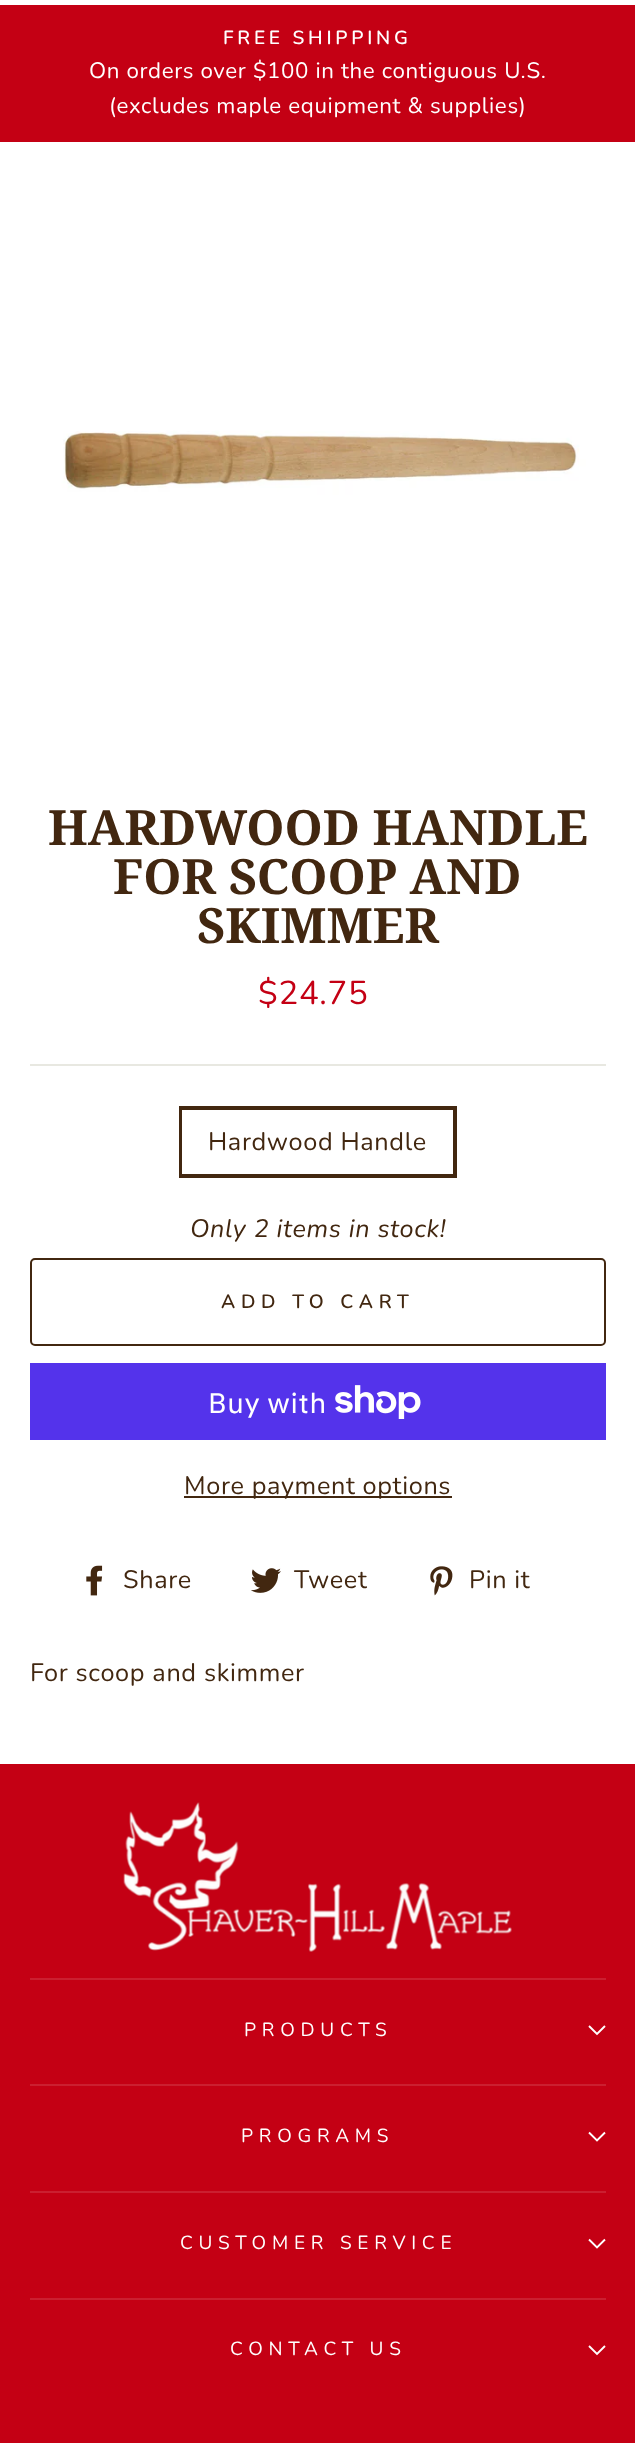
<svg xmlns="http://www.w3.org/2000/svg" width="635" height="2443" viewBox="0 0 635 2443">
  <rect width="100%" height="100%" fill="#ffffff"/>
  <rect x="0" y="5" width="635" height="137" fill="#c40014"/>
  <text x="223" y="44" font-family="Nunito" font-size="19" font-weight="600" letter-spacing="3.75" fill="#ffffff">FREE SHIPPING</text>
  <text x="89" y="78" font-family="Nunito" font-size="22.3" letter-spacing="0.65" fill="#ffffff">On orders over $100 in the contiguous U.S.</text>
  <text x="109" y="113" font-family="Nunito" font-size="22.3" letter-spacing="0.65" fill="#ffffff">(excludes maple equipment &amp; supplies)</text>
  <image x="0" y="142" width="635" height="635" href="img1.png"/>
  <text x="48" y="845" font-family="Noto Serif" font-size="48.6" font-weight="bold" fill="#422710">HARDWOOD HANDLE</text>
  <text x="113" y="894" font-family="Noto Serif" font-size="48.6" font-weight="bold" fill="#422710">FOR SCOOP AND</text>
  <text x="197" y="943" font-family="Noto Serif" font-size="48.6" font-weight="bold" fill="#422710">SKIMMER</text>
  <text x="258" y="1004" font-family="Nunito" font-size="33" letter-spacing="0.65" fill="#c40014">$24.75</text>
  <rect x="30" y="1064" width="576" height="2" fill="#e8e8e1"/>
  <rect x="181" y="1108" width="274" height="68" fill="none" stroke="#422710" stroke-width="4"/>
  <rect x="182" y="1110" width="1" height="64" fill="#ffffff"/>
  <text x="208" y="1150" font-family="Nunito" font-size="25.25" letter-spacing="0.65" fill="#422710">Hardwood Handle</text>
  <text x="190" y="1237" font-family="Nunito" font-size="25.25" font-style="italic" letter-spacing="0.65" fill="#422710">Only 2 items in stock!</text>
  <rect x="31" y="1259" width="574" height="86" rx="4" fill="none" stroke="#422710" stroke-width="2"/>
  <text x="221" y="1308" font-family="Nunito" font-size="19.25" font-weight="600" letter-spacing="5.75" fill="#422710">ADD TO CART</text>
  <rect x="30" y="1363" width="576" height="77" fill="#5433eb"/>
  <text x="208" y="1413" font-family="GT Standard" font-size="28" letter-spacing="0.65" fill="#ffffff">Buy with</text>
  <image x="335" y="1385" width="86" height="34" href="img2.png"/>
  <rect x="184" y="1496" width="268" height="2" fill="#422710"/>
  <text x="184" y="1494" font-family="Nunito" font-size="25.25" letter-spacing="0.65" fill="#422710">More payment options</text>
  <image x="86" y="1565" width="17" height="31" href="img3.png"/>
  <text x="123" y="1588" font-family="Nunito" font-size="25.25" letter-spacing="0.65" fill="#422710">Share</text>
  <image x="251" y="1568" width="30" height="25" href="img4.png"/>
  <text x="294" y="1588" font-family="Nunito" font-size="25.25" letter-spacing="0.65" fill="#422710">Tweet</text>
  <image x="430" y="1566" width="23" height="30" href="img5.png"/>
  <text x="469" y="1588" font-family="Nunito" font-size="25.25" letter-spacing="0.65" fill="#422710">Pin it</text>
  <text x="30" y="1681" font-family="Nunito" font-size="25.25" letter-spacing="0.65" fill="#422710">For scoop and skimmer</text>
  <rect x="0" y="1764" width="635" height="679" fill="#c40014"/>
  <image x="123" y="1802" width="389" height="150" href="img6.png"/>
  <rect x="30" y="1978" width="576" height="2" fill="#cb1f30"/>
  <text x="244" y="2036" font-family="Nunito" font-size="19" letter-spacing="5.75" fill="#ffffff">PRODUCTS</text>
  <path d="M589 2026L597 2034L605 2026" fill="none" stroke="#ffffff" stroke-width="1.9"/>
  <rect x="30" y="2084" width="576" height="2" fill="#cb1f30"/>
  <text x="241" y="2142" font-family="Nunito" font-size="19" letter-spacing="5.75" fill="#ffffff">PROGRAMS</text>
  <path d="M589 2132.5L597 2140.5L605 2132.5" fill="none" stroke="#ffffff" stroke-width="1.9"/>
  <rect x="30" y="2191" width="576" height="2" fill="#cb1f30"/>
  <text x="180" y="2249" font-family="Nunito" font-size="19" letter-spacing="5.75" fill="#ffffff">CUSTOMER SERVICE</text>
  <path d="M589 2239.5L597 2247.5L605 2239.5" fill="none" stroke="#ffffff" stroke-width="1.9"/>
  <rect x="30" y="2298" width="576" height="2" fill="#cb1f30"/>
  <text x="230" y="2355" font-family="Nunito" font-size="19" letter-spacing="5.75" fill="#ffffff">CONTACT US</text>
  <path d="M589 2346L597 2354L605 2346" fill="none" stroke="#ffffff" stroke-width="1.9"/>
</svg>
